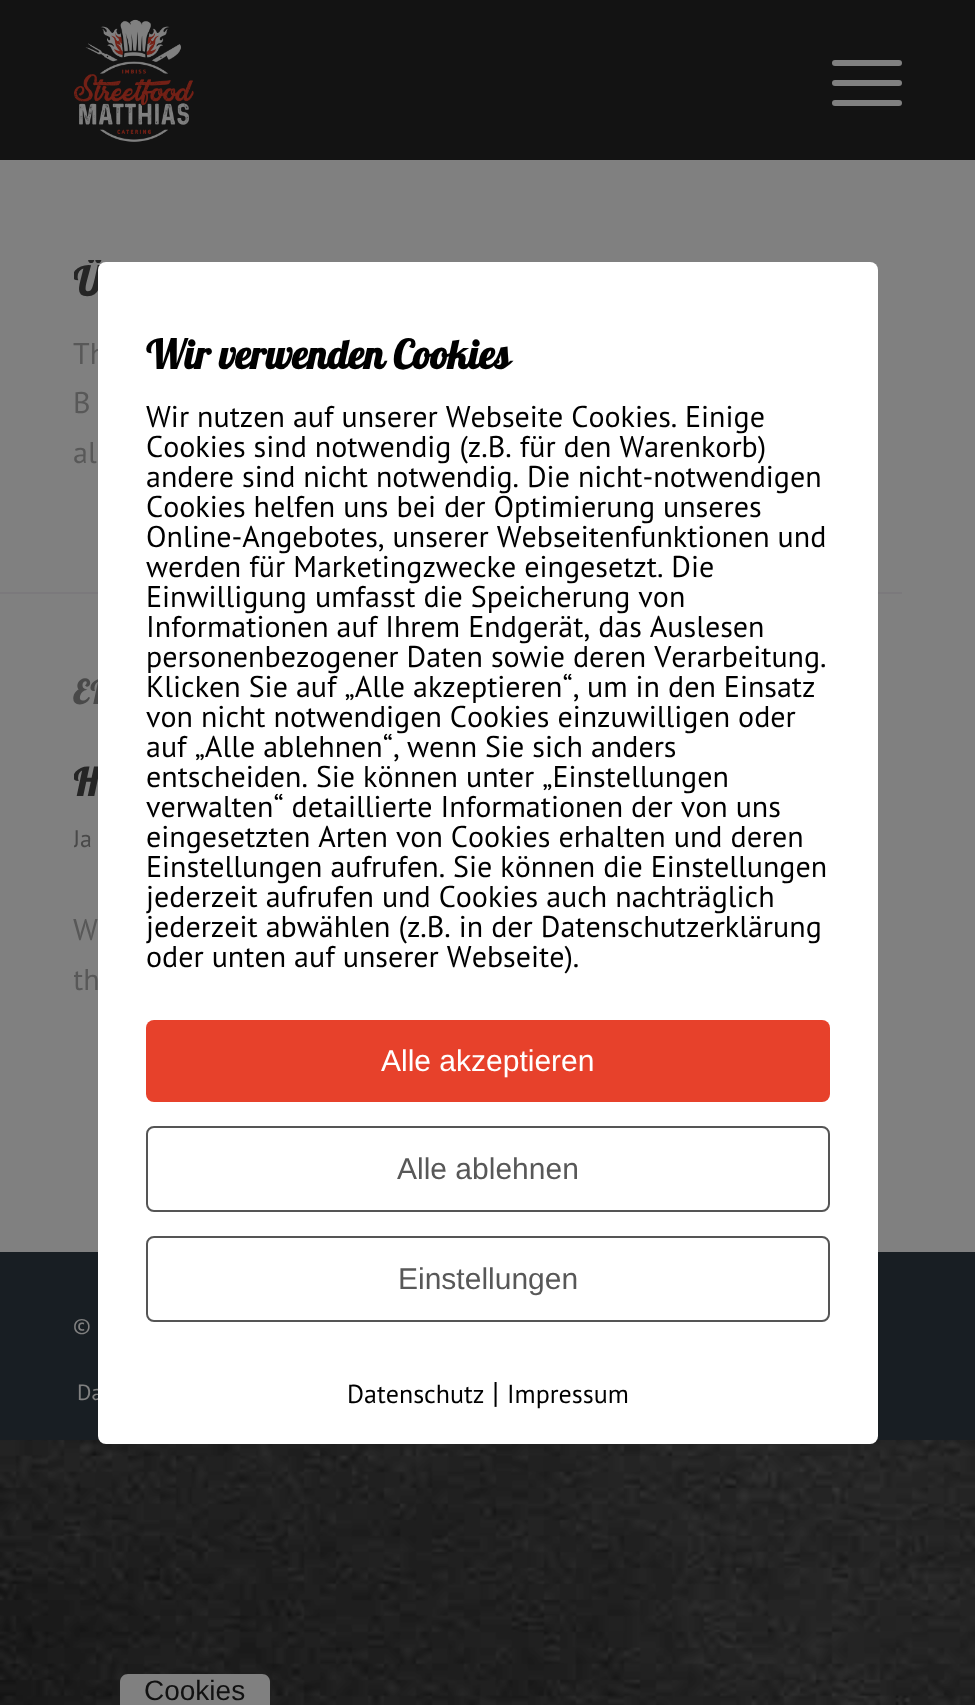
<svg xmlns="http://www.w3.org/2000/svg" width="975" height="1705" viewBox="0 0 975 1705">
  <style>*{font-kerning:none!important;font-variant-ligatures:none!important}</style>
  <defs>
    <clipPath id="clip1"><rect x="74" y="260" width="728" height="244"/></clipPath>
    <clipPath id="clip2"><rect x="74" y="758" width="828" height="352"/></clipPath>
  </defs>
  <rect width="100%" height="100%" fill="#ffffff"/>
  <image x="0" y="1440" width="975" height="265" href="img1.png"/>
  <rect x="0" y="0" width="975" height="160" fill="#131313"/>
  <image x="74" y="19" width="120" height="123" href="img2.png"/>
  <rect x="832" y="80" width="70" height="6" rx="3" fill="#808080"/>
  <rect x="832" y="60" width="70" height="6" rx="3" fill="#808080"/>
  <rect x="832" y="100" width="70" height="6" rx="3" fill="#808080"/>
  <rect x="0" y="160" width="975" height="1092" fill="#808080"/>
  <g clip-path="url(#clip1)">
    <text x="73" y="296" font-family="Lobster" font-size="40" font-weight="bold" fill="#252525">Ü</text>
  </g>
  <text x="73" y="364" font-family="PT Sans" font-size="30" fill="#585858">Th</text>
  <text x="73" y="413" font-family="PT Sans" font-size="30" fill="#585858">B</text>
  <text x="73" y="463" font-family="PT Sans" font-size="30" fill="#585858">al</text>
  <rect x="0" y="592" width="902" height="2" fill="#7b797c"/>
  <text x="73" y="704" font-family="Lobster" font-size="33" font-weight="bold" letter-spacing="2" fill="#494949">EI</text>
  <g clip-path="url(#clip2)">
    <text x="73" y="796" font-family="Lobster" font-size="38" font-weight="bold" fill="#252525">H</text>
    <text x="73" y="847" font-family="PT Sans" font-size="24" fill="#494949">Ja</text>
  </g>
  <text x="73" y="940" font-family="PT Sans" font-size="30" fill="#585858">W</text>
  <g clip-path="url(#clip2)">
    <text x="73" y="990" font-family="PT Sans" font-size="30" fill="#585858">th</text>
  </g>
  <rect x="0" y="1252" width="975" height="188" fill="#181e23"/>
  <text x="73" y="1333" font-family="PT Sans" font-size="22" fill="#808080">©</text>
  <text x="77" y="1400" font-family="PT Sans" font-size="22" fill="#808080">Da</text>
  <rect x="98" y="262" width="780" height="1182" rx="8" fill="#ffffff"/>
  <text x="146" y="369" font-family="Lobster" font-size="40" font-weight="bold" fill="#000000">Wir verwenden Cookies</text>
  <text x="146" y="427" font-family="PT Sans" font-size="30" fill="#000000">Wir nutzen auf unserer Webseite Cookies.</text>
  <text x="685" y="427" font-family="PT Sans" font-size="30" fill="#000000">Einige</text>
  <text x="146" y="457" font-family="PT Sans" font-size="30" fill="#000000">Cookies sind notwendig (z.B. für den Warenkorb)</text>
  <text x="146" y="487" font-family="PT Sans" font-size="30" fill="#000000">andere sind nicht notwendig. Die nicht-notwendigen</text>
  <text x="146" y="517" font-family="PT Sans" font-size="30" fill="#000000">Cookies helfen uns bei der Optimierung unseres</text>
  <text x="146" y="547" font-family="PT Sans" font-size="30" fill="#000000">Online-Angebotes, unserer Webseitenfunktionen und</text>
  <text x="146" y="577" font-family="PT Sans" font-size="30" fill="#000000">werden für Marketingzwecke eingesetzt. Die</text>
  <text x="146" y="607" font-family="PT Sans" font-size="30" fill="#000000">Einwilligung umfasst die Speicherung von</text>
  <text x="146" y="637" font-family="PT Sans" font-size="30" fill="#000000">Informationen auf Ihrem Endgerät, das Auslesen</text>
  <text x="146" y="667" font-family="PT Sans" font-size="30" fill="#000000">personenbezogener Daten sowie deren Verarbeitung.</text>
  <text x="146" y="697" font-family="PT Sans" font-size="30" fill="#000000">Klicken Sie auf „Alle akzeptieren“,</text>
  <text x="587" y="697" font-family="PT Sans" font-size="30" fill="#000000">um in den Einsatz</text>
  <text x="146" y="727" font-family="PT Sans" font-size="30" fill="#000000">von nicht notwendigen Cookies einzuwilligen oder</text>
  <text x="146" y="757" font-family="PT Sans" font-size="30" fill="#000000">auf „Alle ablehnen“,</text>
  <text x="407" y="757" font-family="PT Sans" font-size="30" fill="#000000">wenn Sie sich anders</text>
  <text x="146" y="787" font-family="PT Sans" font-size="30" fill="#000000">entscheiden. Sie können unter „Einstellungen</text>
  <text x="146" y="817" font-family="PT Sans" font-size="30" fill="#000000">verwalten“ detaillierte Informationen der von uns</text>
  <text x="146" y="847" font-family="PT Sans" font-size="30" fill="#000000">eingesetzten Arten von Cookies erhalten und deren</text>
  <text x="146" y="877" font-family="PT Sans" font-size="30" fill="#000000">Einstellungen aufrufen. Sie können die Einstellungen</text>
  <text x="146" y="907" font-family="PT Sans" font-size="30" fill="#000000">jederzeit aufrufen und Cookies auch nachträglich</text>
  <text x="146" y="937" font-family="PT Sans" font-size="30" fill="#000000">jederzeit abwählen (z.B. in der Datenschutzerklärung</text>
  <text x="146" y="967" font-family="PT Sans" font-size="30" fill="#000000">oder unten auf unserer Webseite).</text>
  <rect x="146" y="1020" width="684" height="82" rx="8" fill="#e7412b"/>
  <text x="381" y="1071" font-family="Liberation Sans" font-size="30" fill="#ffffff">Alle akzeptieren</text>
  <rect x="147" y="1127" width="682" height="84" rx="7" fill="none" stroke="#555555" stroke-width="2"/>
  <text x="397" y="1179" font-family="Liberation Sans" font-size="30" fill="#585858">Alle ablehnen</text>
  <rect x="147" y="1237" width="682" height="84" rx="7" fill="none" stroke="#555555" stroke-width="2"/>
  <text x="398" y="1289" font-family="Liberation Sans" font-size="30" fill="#585858">Einstellungen</text>
  <text x="347" y="1403" font-family="PT Sans" font-size="26" fill="#000000">Datenschutz</text>
  <text x="492" y="1403" font-family="PT Sans" font-size="30" fill="#000000">|</text>
  <text x="507" y="1403" font-family="PT Sans" font-size="26" fill="#000000">Impressum</text>
  <path d="M128 1674H262C266.5 1674 270 1677.5 270 1682V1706H120V1682C120 1677.5 123.5 1674 128 1674Z" fill="#808080"/>
  <text x="144" y="1700" font-family="Liberation Sans" font-size="28" fill="#111111">Cookies</text>
</svg>
